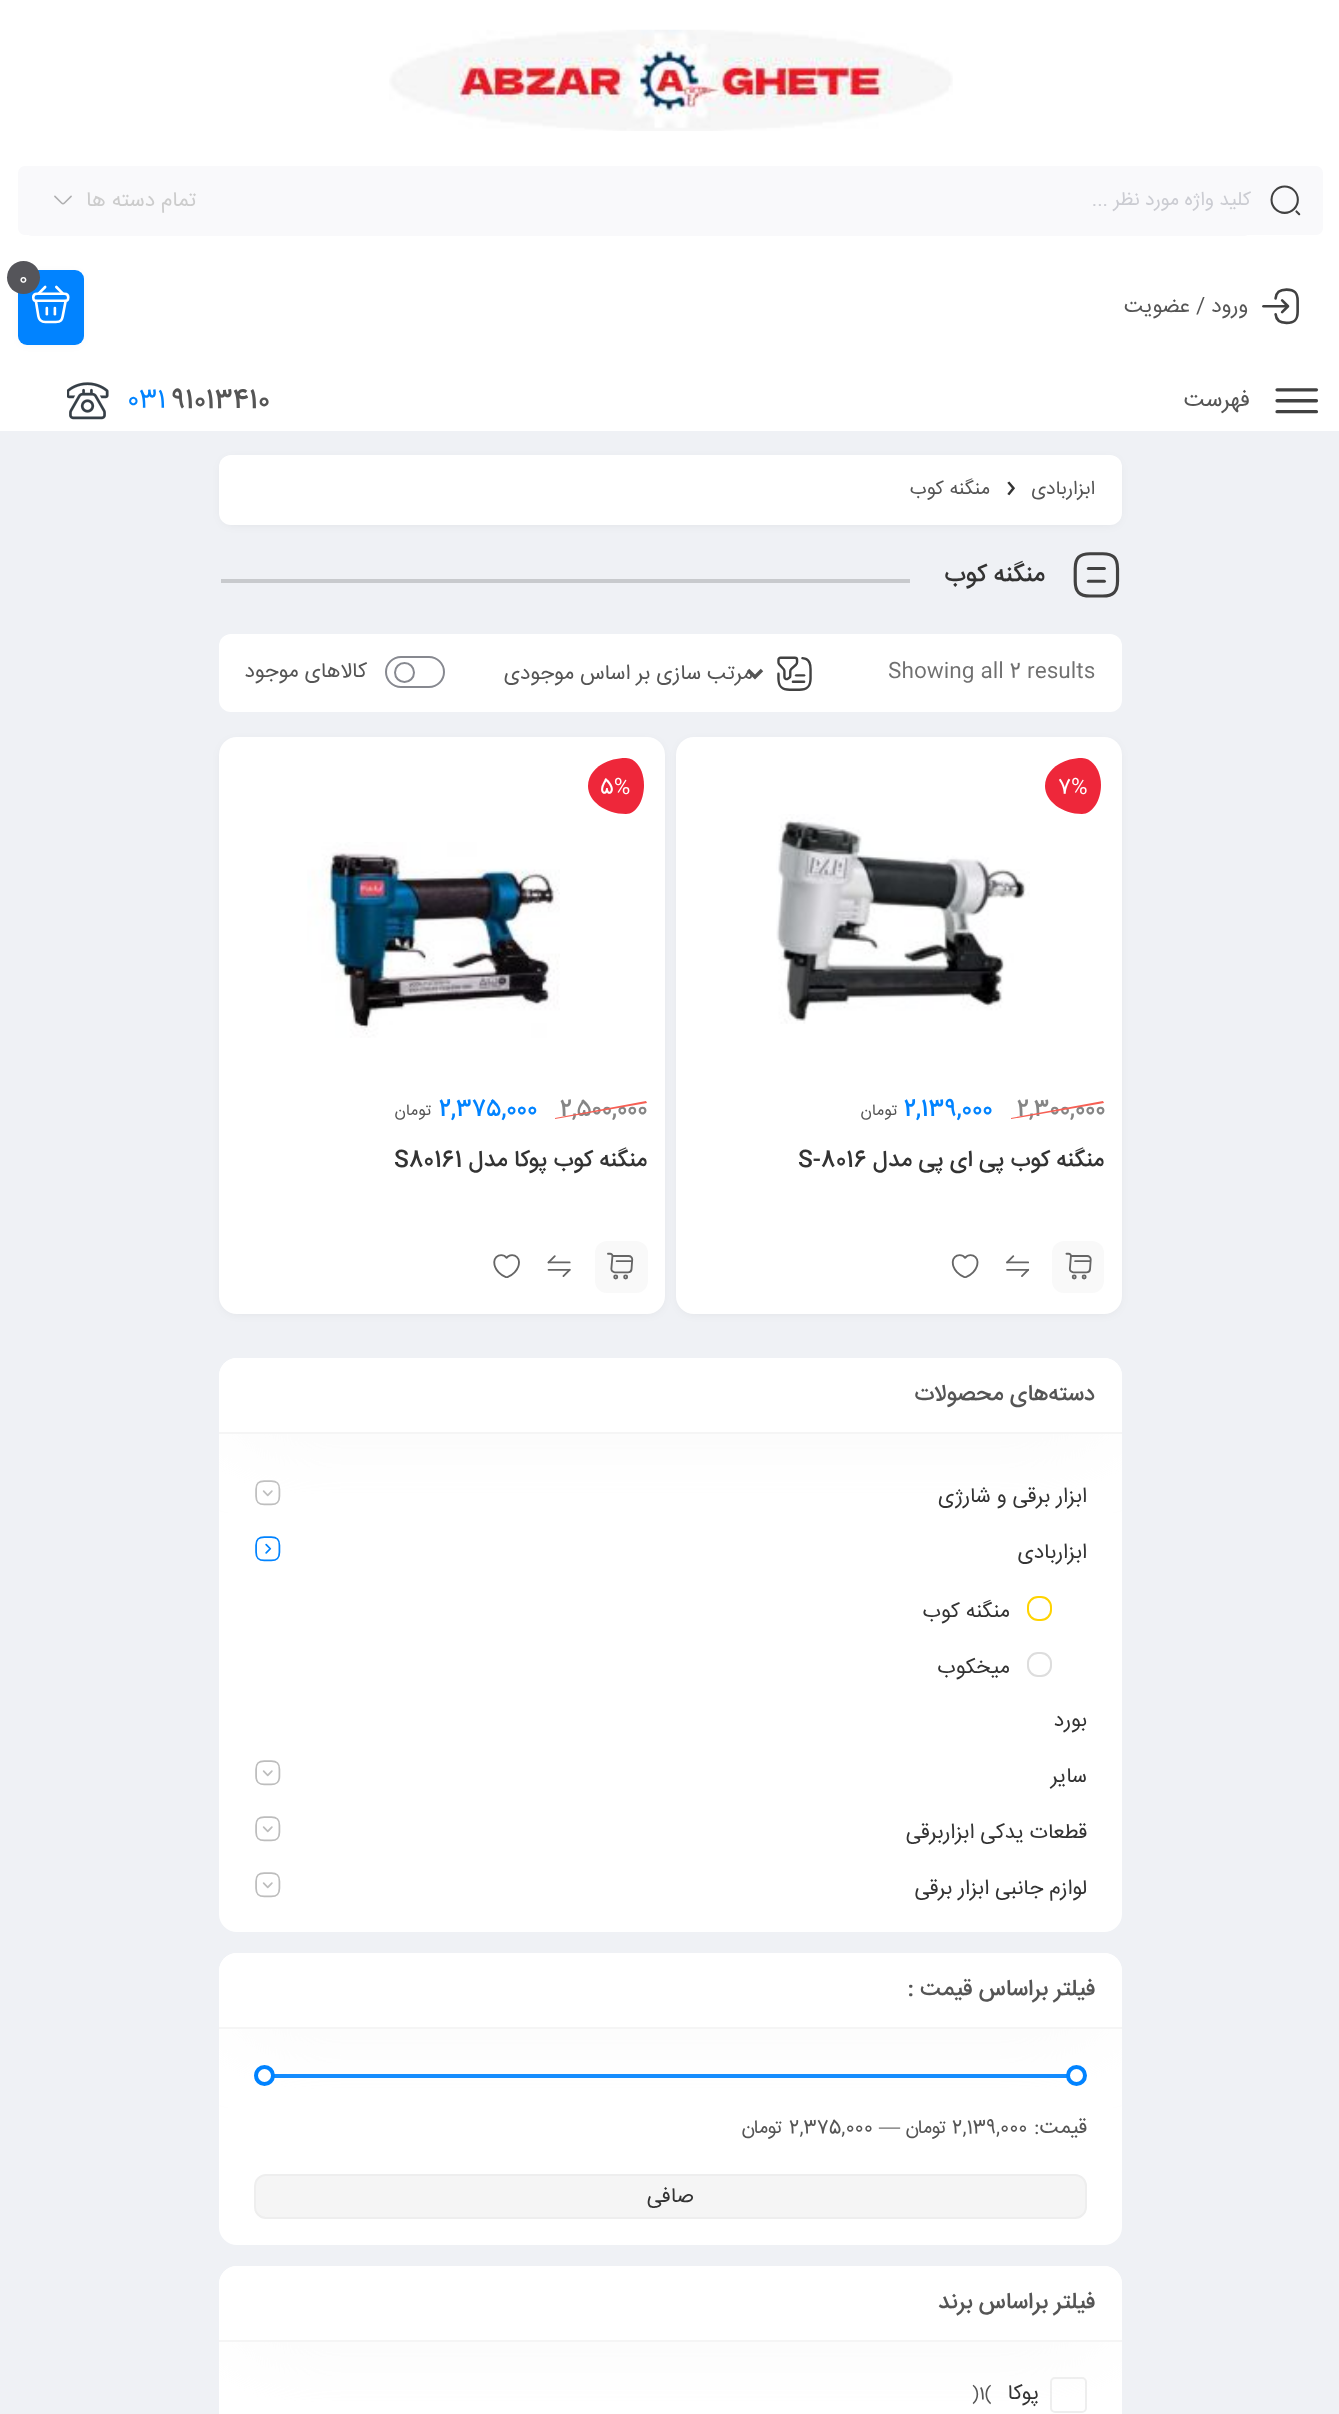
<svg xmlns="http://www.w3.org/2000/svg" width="1339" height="2414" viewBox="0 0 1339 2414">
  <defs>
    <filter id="blur1" x="-50%" y="-200%" width="200%" height="500%"><feGaussianBlur stdDeviation="6"/></filter>
    <clipPath id="clip1"><rect x="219" y="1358" width="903" height="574" rx="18"/></clipPath>
    <filter id="blur2" x="-50%" y="-200%" width="200%" height="500%"><feGaussianBlur stdDeviation="44"/></filter>
    <clipPath id="clip2"><rect x="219" y="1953" width="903" height="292" rx="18"/></clipPath>
    <clipPath id="clip3"><rect x="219" y="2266" width="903" height="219" rx="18"/></clipPath>
  </defs>
  <rect width="100%" height="100%" fill="#eff1f5"/>
  <rect x="0" y="0" width="1339" height="431" fill="#ffffff"/>
  <image x="389" y="29" width="564" height="102" href="img1.png"/>
  <rect x="18" y="166" width="1305" height="69" rx="7" fill="#f9f9fb"/>
  <image x="1270" y="185" width="31" height="31" href="img2.png"/>
  <rect x="25" y="168" width="1226" height="68" rx="7" fill="#f9f9fb"/>
  <text x="1251" y="205" font-family="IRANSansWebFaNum" font-size="19.25" direction="rtl" fill="#cbccd2">کلید واژه مورد نظر ...</text>
  <text x="196" y="206" font-family="IRANSansWebFaNum" font-size="21" direction="rtl" fill="#cccccc">تمام دسته ها</text>
  <image x="54" y="195" width="18" height="10" href="img3.png"/>
  <rect x="23" y="277" width="56" height="64" rx="4" fill="#000000" fill-opacity="0.1" filter="url(#blur1)"/>
  <rect x="18" y="270" width="66" height="75" rx="9" fill="#0183ff"/>
  <image x="32" y="285" width="38" height="39" href="img4.png"/>
  <circle cx="23.5" cy="277.5" r="16.5" fill="#55555a"/>
  <text x="19" y="284" font-family="IRANSansWebFaNum" font-size="18" fill="#ffffff">0</text>
  <image x="1262" y="288" width="37" height="37" href="img5.png"/>
  <text x="1248" y="312" font-family="IRANSansWebFaNum" font-size="21" direction="rtl" fill="#555555">ورود / عضویت</text>
  <image x="1275" y="388" width="44" height="26" href="img6.png"/>
  <text x="1250" y="406" font-family="IRANSansWebFaNum" font-size="22.75" direction="rtl" fill="#555555">فهرست</text>
  <text x="171" y="407" font-family="IRANSansWebFaNum" font-size="26" font-weight="500" fill="#555555">91013410</text>
  <text x="127" y="407" font-family="IRANSansWebFaNum" font-size="26" fill="#0183ff">031</text>
  <image x="67" y="382" width="42" height="38" href="img7.png"/>
  <rect x="224" y="462" width="893" height="60" rx="7" fill="#000000" fill-opacity="0.1" filter="url(#blur1)"/>
  <rect x="219" y="455" width="903" height="70" rx="12" fill="#ffffff"/>
  <text x="1095" y="494" font-family="IRANSansWebFaNum" font-size="19.25" direction="rtl" fill="#555555">ابزاربادی</text>
  <text x="1006" y="497" font-family="Noto Sans" font-size="33" fill="#333333">›</text>
  <text x="990" y="494" font-family="IRANSansWebFaNum" font-size="19.25" direction="rtl" fill="#555555">منگنه کوب</text>
  <image x="1073" y="552" width="47" height="46" href="img8.png"/>
  <text x="1045" y="581" font-family="IRANSansWebFaNum" font-size="24.5" font-weight="500" direction="rtl" fill="#333333">منگنه کوب</text>
  <rect x="221" y="579" width="689" height="4" fill="#c8cacd"/>
  <rect x="219" y="634" width="903" height="78" rx="12" fill="#ffffff"/>
  <text x="888" y="677" font-family="IRANSansWebFaNum" font-size="21" fill="#707070">Showing all 2 results</text>
  <image x="777" y="656" width="35" height="35" href="img9.png"/>
  <path d="M748 670L755 677L762 670" fill="none" stroke="#555555" stroke-width="3.5"/>
  <text x="753" y="679" font-family="IRANSansWebFaNum" font-size="21" direction="rtl" fill="#555555">مرتب سازی بر اساس موجودی</text>
  <rect x="386" y="657" width="58" height="30" rx="15" fill="none" stroke="#878990" stroke-width="2"/>
  <circle cx="404.5" cy="672.5" r="9.5" fill="none" stroke="#878990" stroke-width="2"/>
  <text x="367" y="677" font-family="IRANSansWebFaNum" font-size="21" direction="rtl" fill="#555555">کالاهای موجود</text>
  <rect x="681" y="744" width="436" height="567" rx="12" fill="#000000" fill-opacity="0.1" filter="url(#blur1)"/>
  <rect x="676" y="737" width="446" height="577" rx="18" fill="#ffffff"/>
  <path d="M1082 758C1092 758 1101 770 1101 785C1101 801 1092 814 1082 814C1062 814 1045 801 1045 786C1045 770 1062 758 1082 758Z" fill="#ee273a"/>
  <text x="1058" y="793" font-family="IRANSansWebFaNum" font-size="21" fill="#ffffff">7%</text>
  <image x="776" y="814" width="254" height="210" href="img10.png"/>
  <text x="1017" y="1115" font-family="IRANSansWebFaNum" font-size="22.5" font-weight="500" letter-spacing="-0.25" fill="#858585">2,300,000</text>
  <path d="M1011 1118L1103 1101L1104 1103L1011 1119Z" fill="#f65f54"/>
  <text x="904" y="1115" font-family="IRANSansWebFaNum" font-size="22.75" font-weight="500" letter-spacing="-0.25" fill="#0183ff">2,139,000</text>
  <text x="897" y="1115" font-family="IRANSansWebFaNum" font-size="16" letter-spacing="-0.25" direction="rtl" fill="#555555">تومان</text>
  <text x="1104" y="1166" font-family="IRANSansWebFaNum" font-size="22.75" font-weight="500" direction="rtl" fill="#333333">منگنه کوب پی ای پی مدل</text>
  <text x="798" y="1166" font-family="IRANSansWebFaNum" font-size="22.75" font-weight="500" fill="#333333">S-8016</text>
  <rect x="1052" y="1241" width="52" height="52" rx="12" fill="#f9f9f9"/>
  <image x="1065" y="1252" width="27" height="28" href="img11.png"/>
  <image x="1006" y="1255" width="24" height="22" href="img12.png"/>
  <image x="951" y="1254" width="28" height="24" href="img13.png"/>
  <rect x="224" y="744" width="436" height="567" rx="12" fill="#000000" fill-opacity="0.1" filter="url(#blur1)"/>
  <rect x="219" y="737" width="446" height="577" rx="18" fill="#ffffff"/>
  <path d="M626 758C636 758 644 770 644 785C644 801 636 814 626 814C605 814 588 801 588 786C588 770 605 758 626 758Z" fill="#ee273a"/>
  <text x="600" y="793" font-family="IRANSansWebFaNum" font-size="21" fill="#ffffff">5%</text>
  <image x="307" y="842" width="253" height="196" href="img14.png"/>
  <text x="560" y="1115" font-family="IRANSansWebFaNum" font-size="22.5" font-weight="500" letter-spacing="-0.25" fill="#858585">2,500,000</text>
  <path d="M555 1118L646 1101L647 1103L555 1119Z" fill="#f65f54"/>
  <text x="439" y="1115" font-family="IRANSansWebFaNum" font-size="22.75" font-weight="500" letter-spacing="-0.25" fill="#0183ff">2,375,000</text>
  <text x="431" y="1115" font-family="IRANSansWebFaNum" font-size="16" letter-spacing="-0.25" direction="rtl" fill="#555555">تومان</text>
  <text x="647" y="1166" font-family="IRANSansWebFaNum" font-size="22.75" font-weight="500" direction="rtl" fill="#333333">منگنه کوب پوکا مدل</text>
  <text x="394" y="1166" font-family="IRANSansWebFaNum" font-size="22.75" font-weight="500" fill="#333333">S80161</text>
  <rect x="595" y="1241" width="53" height="52" rx="12" fill="#f9f9f9"/>
  <image x="607" y="1252" width="27" height="28" href="img15.png"/>
  <image x="547" y="1255" width="24" height="22" href="img16.png"/>
  <image x="493" y="1254" width="27" height="24" href="img17.png"/>
  <rect x="219" y="1358" width="903" height="574" rx="18" fill="#ffffff"/>
  <image x="255" y="1480" width="26" height="26" href="img18.png"/>
  <image x="255" y="1536" width="26" height="26" href="img19.png"/>
  <g clip-path="url(#clip1)">
    <rect x="235" y="1381" width="871" height="44" fill="#f5f5f5" filter="url(#blur2)"/>
  </g>
  <path d="M237 1358H1104C1114 1358 1122 1366 1122 1376V1433H219V1376C219 1366 227 1358 237 1358Z" fill="#ffffff"/>
  <rect x="219" y="1432" width="903" height="2" fill="#f5f5f5"/>
  <text x="1095" y="1400" font-family="IRANSansWebFaNum" font-size="22.75" font-weight="500" direction="rtl" fill="#555555">دسته‌های محصولات</text>
  <text x="1087" y="1502" font-family="IRANSansWebFaNum" font-size="21" direction="rtl" fill="#333333">ابزار برقی و شارژی</text>
  <text x="1087" y="1558" font-family="IRANSansWebFaNum" font-size="21" direction="rtl" fill="#333333">ابزاربادی</text>
  <rect x="1028" y="1597" width="23" height="23" rx="10" fill="none" stroke="#ffd300" stroke-width="2"/>
  <text x="1010" y="1617" font-family="IRANSansWebFaNum" font-size="21" direction="rtl" fill="#333333">منگنه کوب</text>
  <rect x="1028" y="1653" width="23" height="23" rx="10" fill="none" stroke="#dddddd" stroke-width="2"/>
  <text x="1010" y="1673" font-family="IRANSansWebFaNum" font-size="21" direction="rtl" fill="#333333">میخکوب</text>
  <text x="1087" y="1726" font-family="IRANSansWebFaNum" font-size="21" direction="rtl" fill="#333333">بورد</text>
  <text x="1087" y="1782" font-family="IRANSansWebFaNum" font-size="21" direction="rtl" fill="#333333">سایر</text>
  <image x="255" y="1760" width="26" height="26" href="img20.png"/>
  <text x="1087" y="1838" font-family="IRANSansWebFaNum" font-size="21" direction="rtl" fill="#333333">قطعات یدکی ابزاربرقی</text>
  <image x="255" y="1816" width="26" height="26" href="img18.png"/>
  <text x="1087" y="1894" font-family="IRANSansWebFaNum" font-size="21" direction="rtl" fill="#333333">لوازم جانبی ابزار برقی</text>
  <image x="255" y="1872" width="26" height="26" href="img18.png"/>
  <rect x="219" y="1953" width="903" height="292" rx="18" fill="#ffffff"/>
  <rect x="274" y="2074" width="793" height="4" fill="#0183ff"/>
  <g clip-path="url(#clip2)">
    <rect x="235" y="1976" width="871" height="44" fill="#f5f5f5" filter="url(#blur2)"/>
  </g>
  <path d="M237 1953H1104C1114 1953 1122 1961 1122 1971V2028H219V1971C219 1961 227 1953 237 1953Z" fill="#ffffff"/>
  <rect x="219" y="2027" width="903" height="2" fill="#f5f5f5"/>
  <text x="1095" y="1995" font-family="IRANSansWebFaNum" font-size="22.75" font-weight="500" direction="rtl" fill="#555555">فیلتر براساس قیمت :</text>
  <circle cx="1076.5" cy="2075.5" r="8.5" fill="#ffffff" stroke="#0183ff" stroke-width="4"/>
  <circle cx="264.5" cy="2075.5" r="8.5" fill="#ffffff" stroke="#0183ff" stroke-width="4"/>
  <text x="1087" y="2133" font-family="IRANSansWebFaNum" font-size="21" direction="rtl" fill="#555555">قيمت:</text>
  <text x="952" y="2133" font-family="IRANSansWebFaNum" font-size="19.25" fill="#555555">2,139,000</text>
  <text x="947" y="2133" font-family="IRANSansWebFaNum" font-size="19.25" direction="rtl" fill="#555555">تومان</text>
  <text x="879" y="2133" font-family="Liberation Serif" font-size="21" fill="#555555">—</text>
  <text x="789" y="2133" font-family="IRANSansWebFaNum" font-size="19.25" fill="#555555">2,375,000</text>
  <text x="783" y="2133" font-family="IRANSansWebFaNum" font-size="19.25" direction="rtl" fill="#555555">تومان</text>
  <rect x="255" y="2175" width="831" height="43" rx="11" fill="#f5f5f5" stroke="#eeeeee" stroke-width="2"/>
  <text x="694" y="2202" font-family="IRANSansWebFaNum" font-size="21" direction="rtl" fill="#333333">صافی</text>
  <rect x="219" y="2266" width="903" height="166" rx="18" fill="#ffffff"/>
  <rect x="1051" y="2378" width="35" height="34" rx="4" fill="none" stroke="#eeeeee" stroke-width="2"/>
  <g clip-path="url(#clip3)">
    <rect x="235" y="2289" width="871" height="44" fill="#f5f5f5" filter="url(#blur2)"/>
  </g>
  <path d="M237 2266H1104C1114 2266 1122 2274 1122 2284V2342H219V2284C219 2274 227 2266 237 2266Z" fill="#ffffff"/>
  <rect x="219" y="2340" width="903" height="2" fill="#f5f5f5"/>
  <text x="1095" y="2308" font-family="IRANSansWebFaNum" font-size="22.75" font-weight="500" direction="rtl" fill="#555555">فیلتر براساس برند</text>
  <text x="1039" y="2399" font-family="IRANSansWebFaNum" font-size="21" direction="rtl" fill="#333333">پوکا</text>
  <text x="972" y="2399" font-family="IRANSansWebFaNum" font-size="18" fill="#555555">)1(</text>
</svg>
